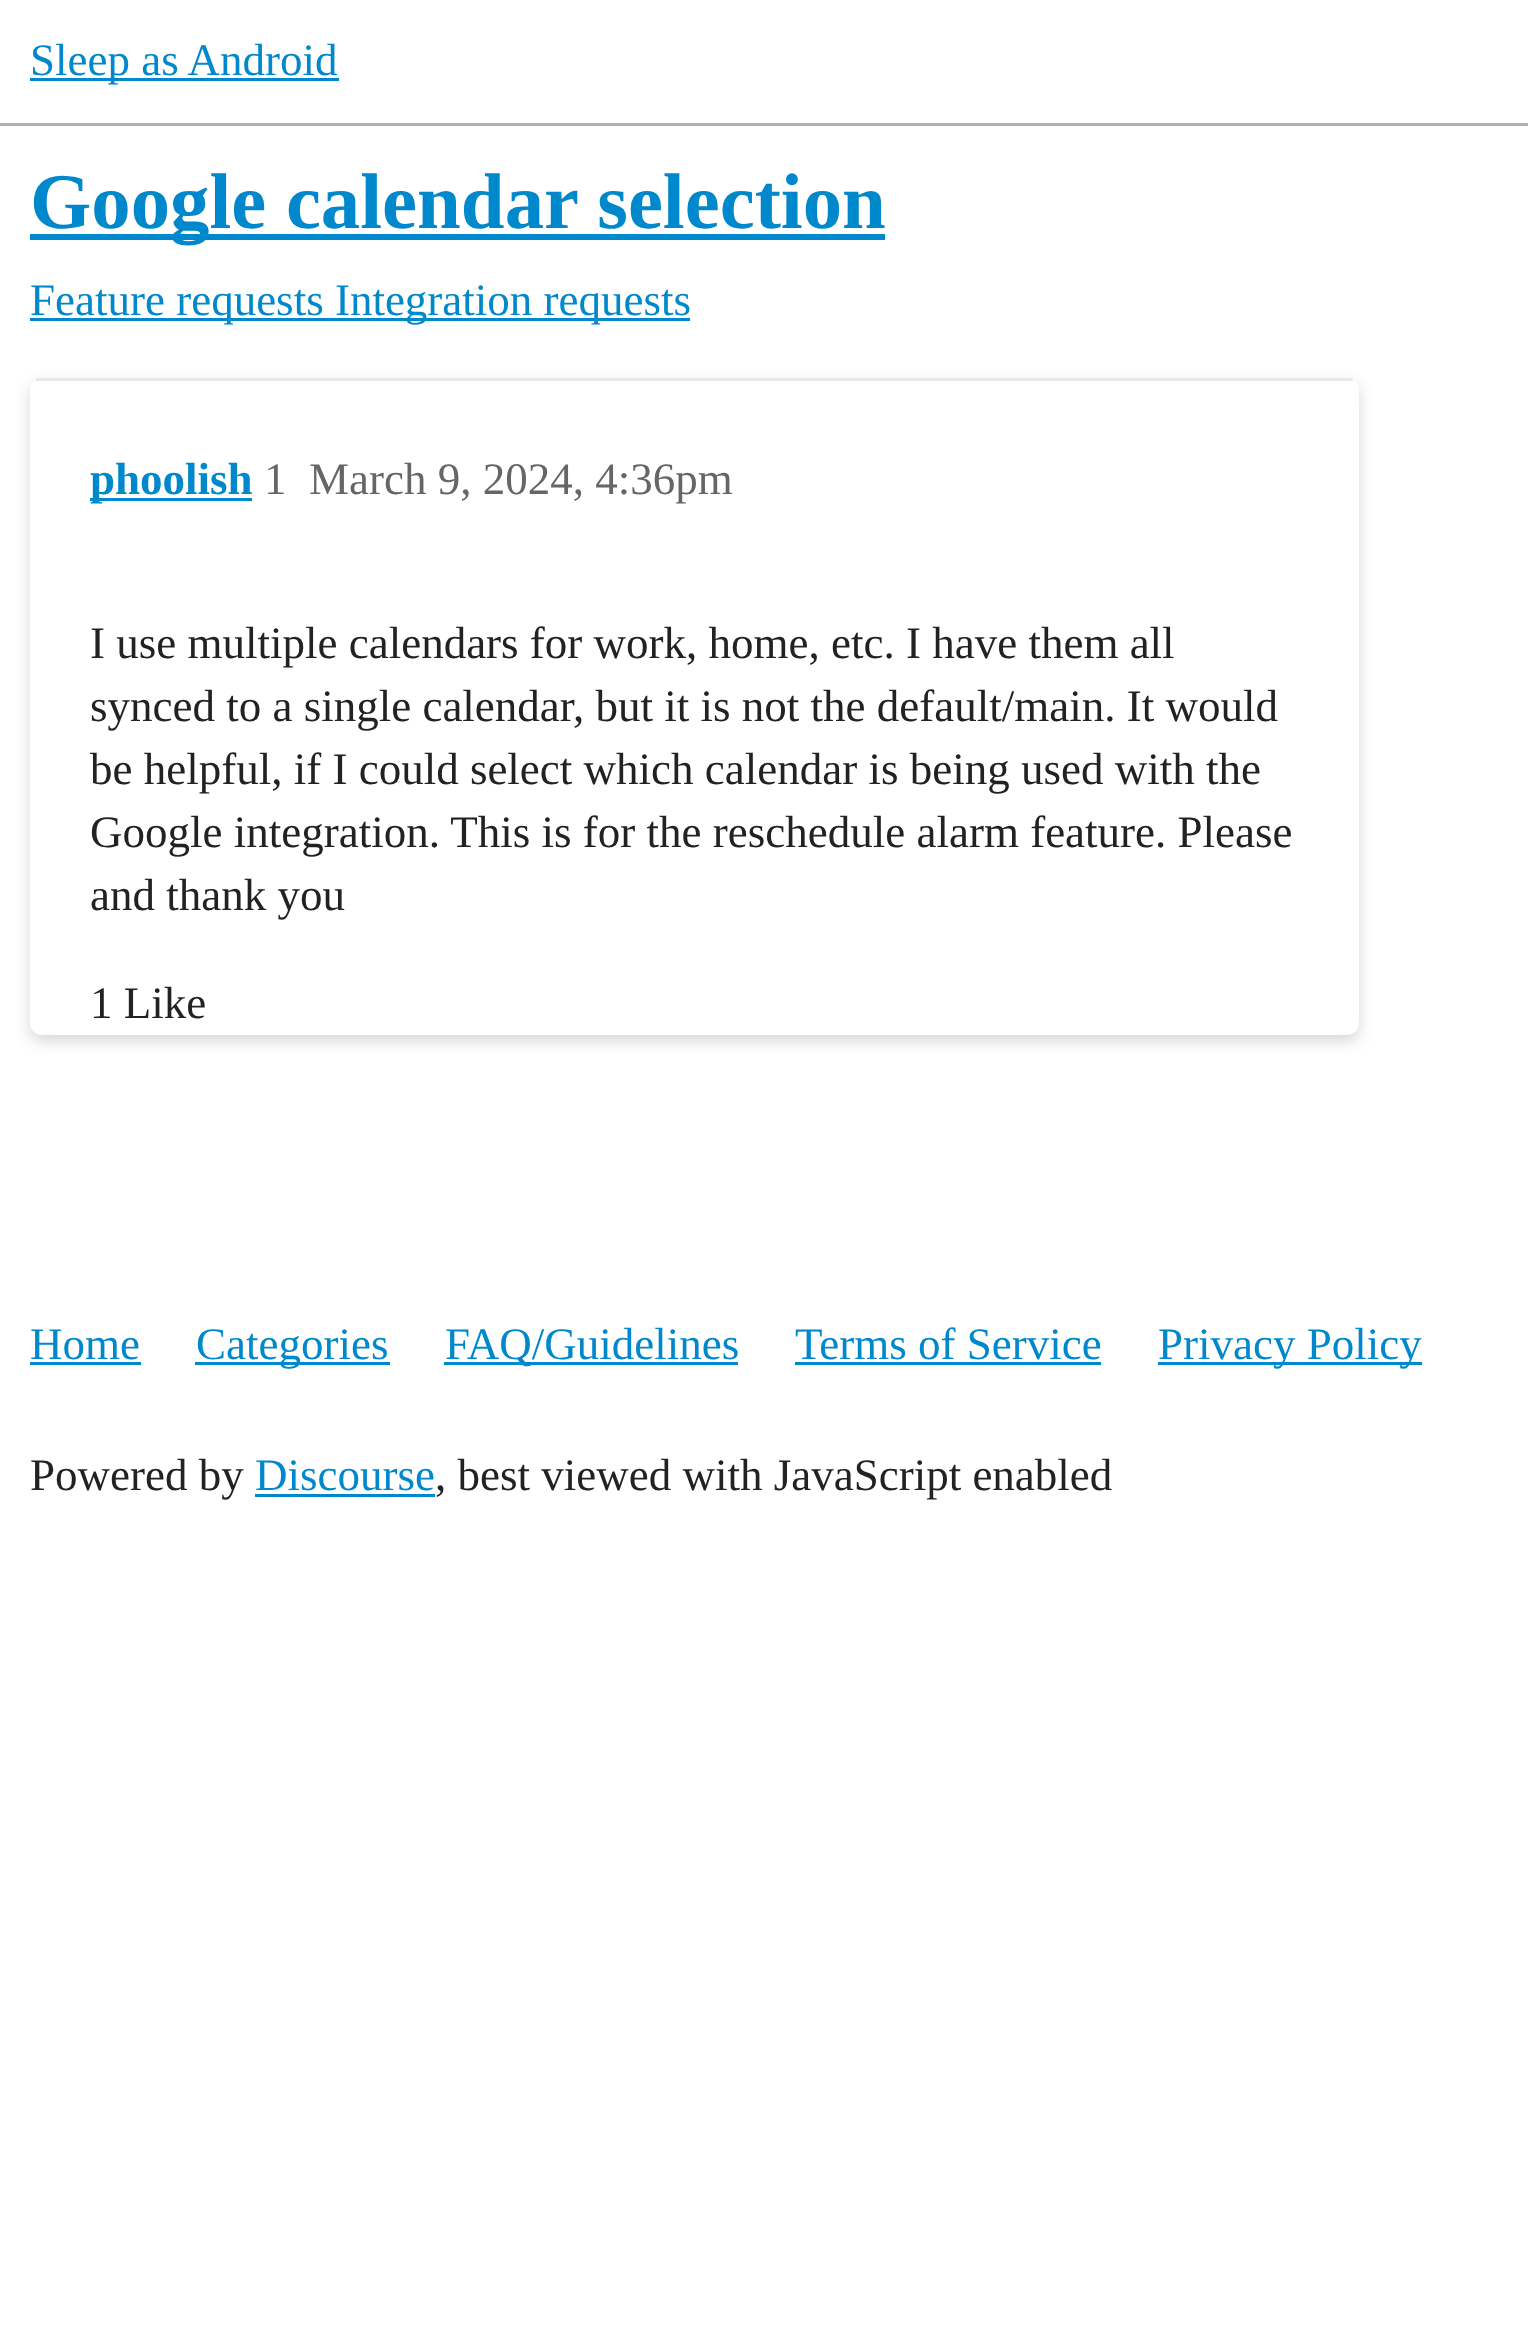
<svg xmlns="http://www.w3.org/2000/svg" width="1528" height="2348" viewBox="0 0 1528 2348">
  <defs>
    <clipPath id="clip1"><path d="M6 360H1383V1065H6ZM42 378H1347C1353.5 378 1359 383.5 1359 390V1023C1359 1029.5 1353.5 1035 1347 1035H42C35.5 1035 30 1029.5 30 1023V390C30 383.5 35.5 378 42 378Z" clip-rule="evenodd"/></clipPath>
    <filter id="blur1" x="-50%" y="-200%" width="200%" height="500%"><feGaussianBlur stdDeviation="7.5"/></filter>
  </defs>
  <rect width="100%" height="100%" fill="#ffffff"/>
  <rect x="0" y="123" width="1528" height="3" fill="#afafaf"/>
  <rect x="30" y="78" width="309" height="3" fill="#0088cc"/>
  <text x="30" y="75" font-family="Liberation Serif" font-size="45" fill="#0088cc">Sleep as Android</text>
  <rect x="30" y="234" width="855" height="6" fill="#0088cc"/>
  <text x="30" y="228" font-family="Liberation Serif" font-size="78.75" font-weight="bold" fill="#0088cc">Google calendar selection</text>
  <rect x="30" y="318" width="660" height="3" fill="#0088cc"/>
  <text x="30" y="315" font-family="Liberation Serif" font-size="45" fill="#0088cc">Feature requests Integration requests</text>
  <g clip-path="url(#clip1)">
    <rect x="30" y="384" width="1329" height="657" rx="12" fill="#000000" fill-opacity="0.16" filter="url(#blur1)"/>
  </g>
  <rect x="36" y="378" width="1317" height="3" fill="#e9e9e9"/>
  <rect x="90" y="498" width="162" height="3" fill="#0088cc"/>
  <text x="90" y="494" font-family="Liberation Serif" font-size="45" font-weight="bold" fill="#0088cc">phoolish</text>
  <text x="264" y="494" font-family="Liberation Serif" font-size="45" fill="#666666">1</text>
  <text x="309" y="494" font-family="Liberation Serif" font-size="45" fill="#666666">March 9, 2024, 4:36pm</text>
  <text x="90" y="658" font-family="Liberation Serif" font-size="45" fill="#222222">I use multiple calendars for work, home, etc. I have them all</text>
  <text x="90" y="721" font-family="Liberation Serif" font-size="45" fill="#222222">synced to a single calendar, but it is not the default/main. It would</text>
  <text x="90" y="784" font-family="Liberation Serif" font-size="45" fill="#222222">be helpful, if I could select which calendar is being used with the</text>
  <text x="90" y="847" font-family="Liberation Serif" font-size="45" fill="#222222">Google integration. This is for the reschedule alarm feature. Please</text>
  <text x="90" y="910" font-family="Liberation Serif" font-size="45" fill="#222222">and thank you</text>
  <text x="90" y="1018" font-family="Liberation Serif" font-size="45" fill="#222222">1 Like</text>
  <text x="30" y="1359" font-family="Liberation Serif" font-size="45" fill="#0088cc">Home</text>
  <rect x="30" y="1362" width="111" height="3" fill="#0088cc"/>
  <rect x="195" y="1362" width="195" height="3" fill="#0088cc"/>
  <text x="196" y="1359" font-family="Liberation Serif" font-size="45" fill="#0088cc">Categories</text>
  <rect x="444" y="1362" width="294" height="3" fill="#0088cc"/>
  <text x="445" y="1359" font-family="Liberation Serif" font-size="45" fill="#0088cc">FAQ/Guidelines</text>
  <text x="795" y="1359" font-family="Liberation Serif" font-size="45" fill="#0088cc">Terms of Service</text>
  <rect x="795" y="1362" width="306" height="3" fill="#0088cc"/>
  <rect x="1158" y="1362" width="264" height="3" fill="#0088cc"/>
  <text x="1158" y="1359" font-family="Liberation Serif" font-size="45" fill="#0088cc">Privacy Policy</text>
  <text x="30" y="1490" font-family="Liberation Serif" font-size="45" fill="#222222">Powered by</text>
  <text x="255" y="1490" font-family="Liberation Serif" font-size="45" fill="#0088cc">Discourse</text>
  <rect x="255" y="1494" width="180" height="3" fill="#0088cc"/>
  <text x="435" y="1490" font-family="Liberation Serif" font-size="45" fill="#222222">, best viewed with JavaScript enabled</text>
</svg>
